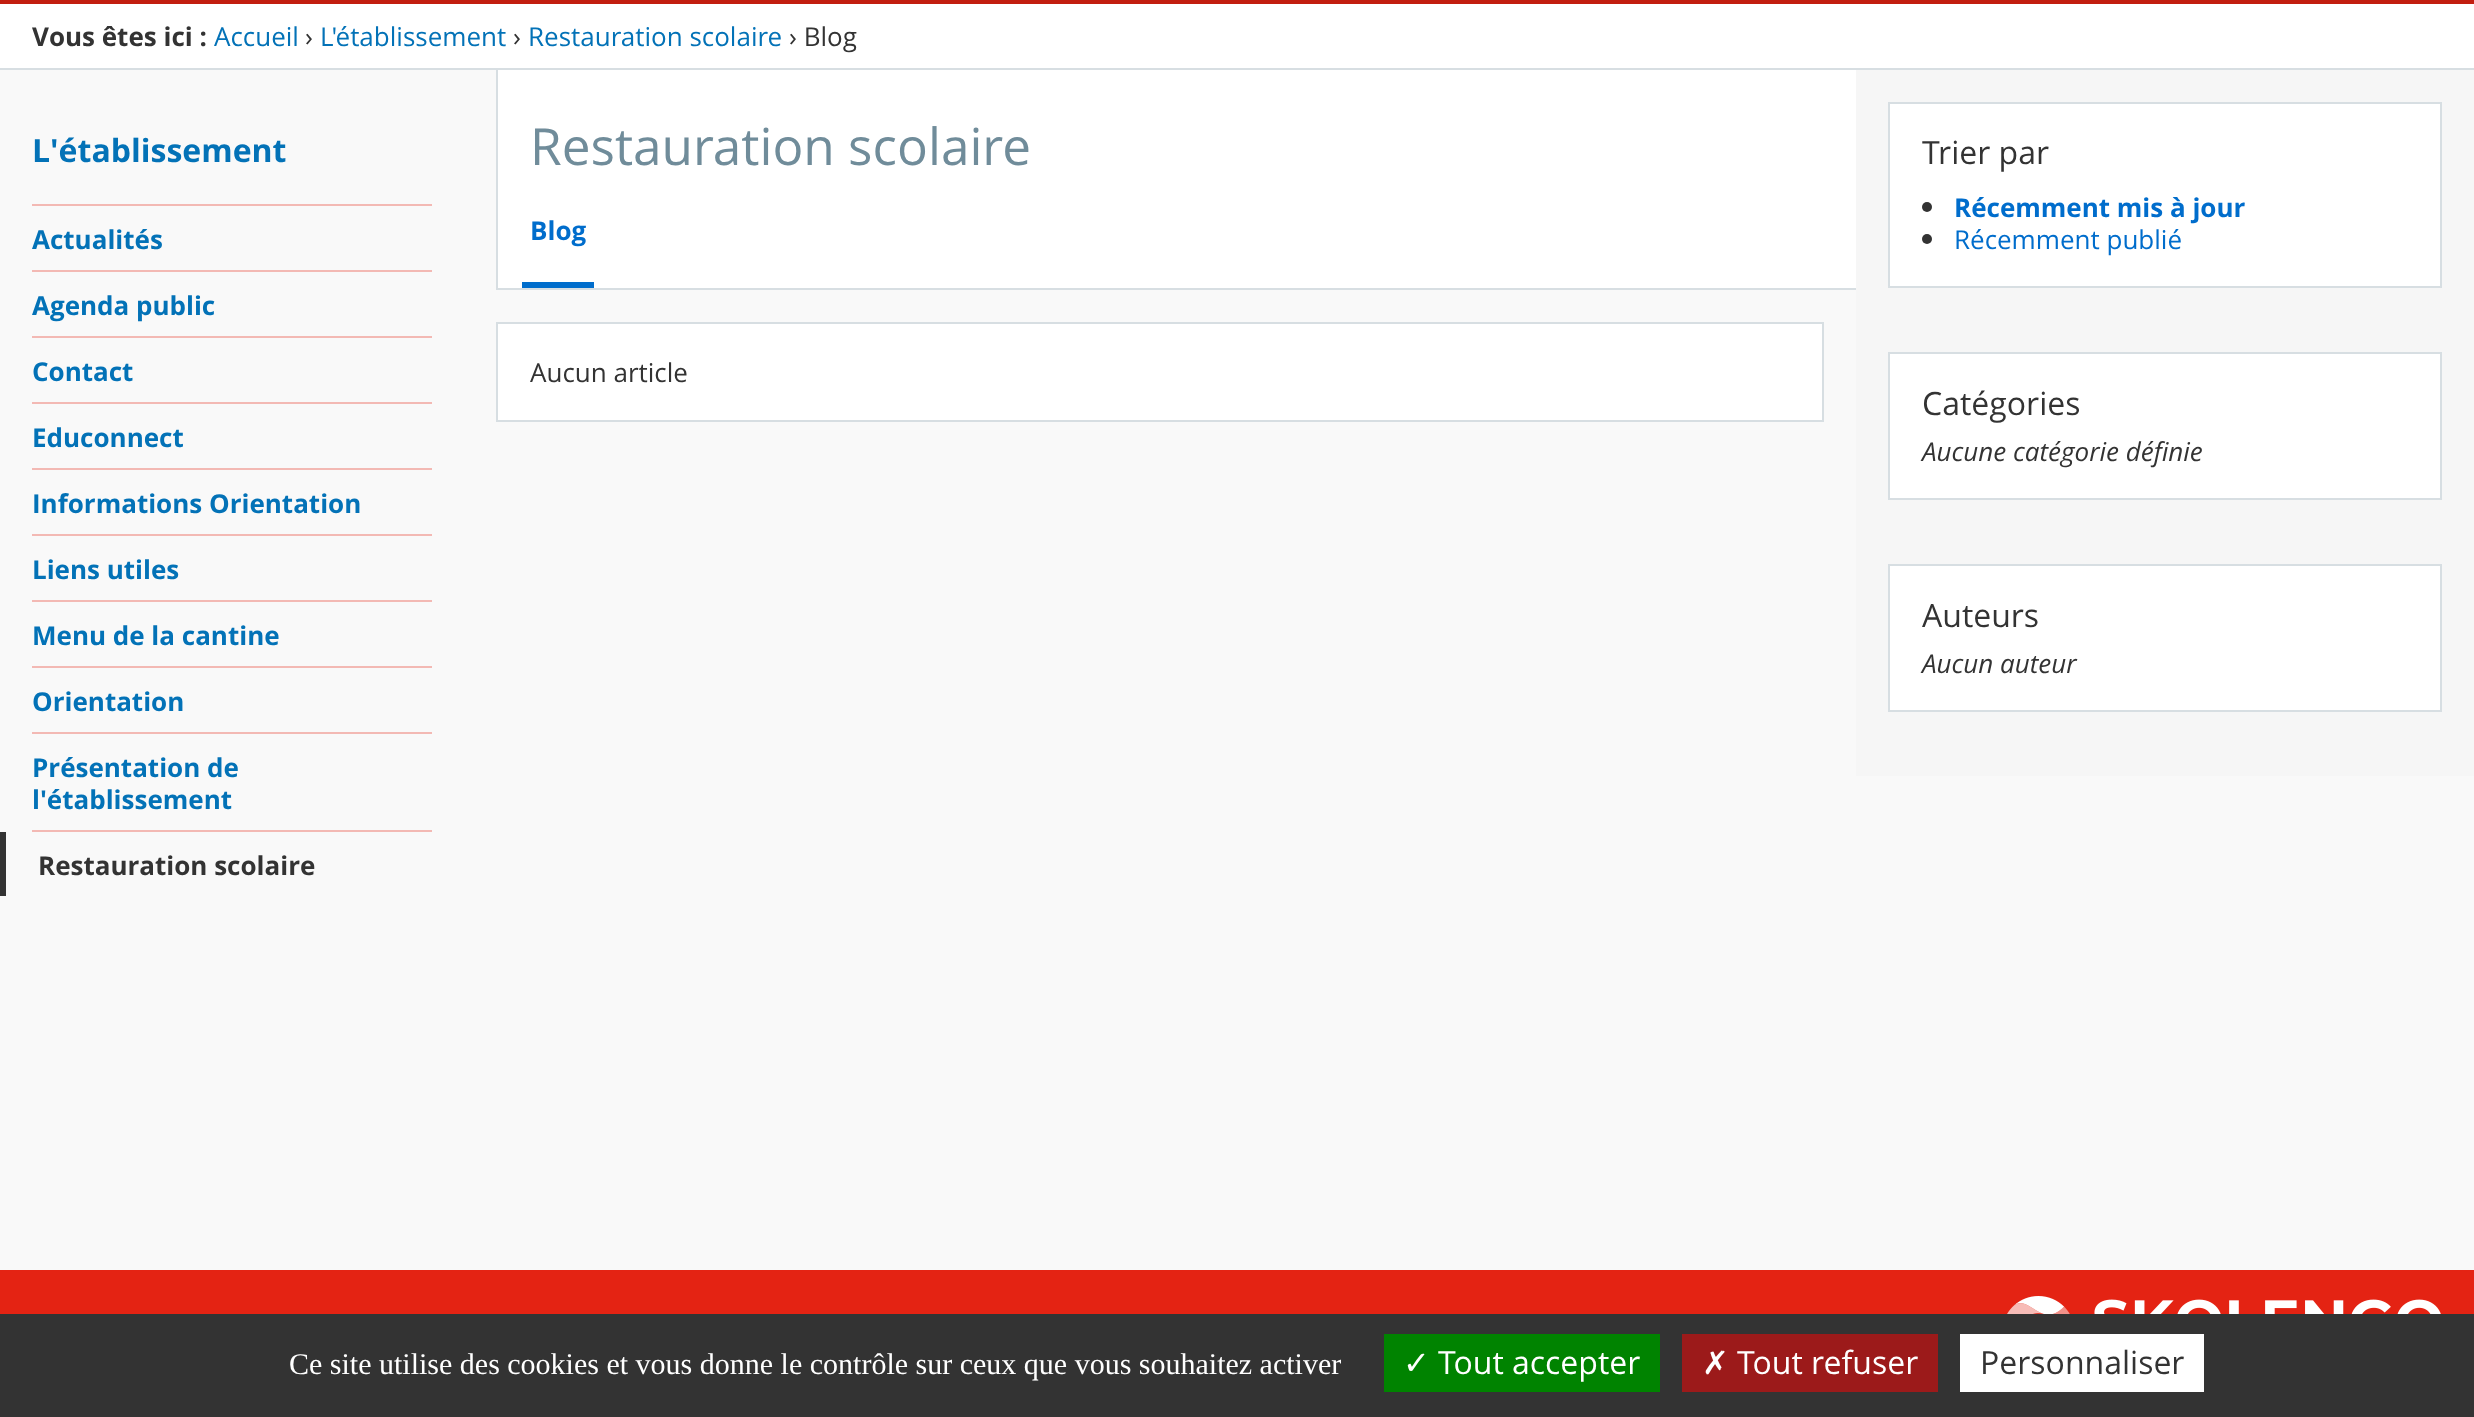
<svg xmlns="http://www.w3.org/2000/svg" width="2474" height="1417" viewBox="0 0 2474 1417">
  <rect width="100%" height="100%" fill="#ffffff"/>
  <rect x="0" y="0" width="2474" height="4" fill="#c21e10"/>
  <rect x="0" y="68" width="2474" height="2" fill="#d7dee2"/>
  <text x="32" y="46" font-family="Open Sans" font-size="26" font-weight="bold" fill="#333333">Vous êtes ici :</text>
  <text x="214" y="46" font-family="Open Sans" font-size="26" fill="#0372b7">Accueil</text>
  <text x="305" y="46" font-family="Open Sans" font-size="26" fill="#333333">›</text>
  <text x="320" y="46" font-family="Open Sans" font-size="26" fill="#0372b7">L'établissement</text>
  <text x="513" y="46" font-family="Open Sans" font-size="26" fill="#333333">›</text>
  <text x="528" y="46" font-family="Open Sans" font-size="26" fill="#0372b7">Restauration scolaire</text>
  <text x="789" y="46" font-family="Open Sans" font-size="26" fill="#333333">› Blog</text>
  <rect x="0" y="70" width="2474" height="1200" fill="#f9f9f9"/>
  <text x="32" y="162" font-family="Open Sans" font-size="32" font-weight="bold" fill="#0372b7">L'établissement</text>
  <rect x="32" y="204" width="400" height="2" fill="#f3b9b4"/>
  <rect x="32" y="270" width="400" height="2" fill="#f3b9b4"/>
  <text x="32" y="249" font-family="Open Sans" font-size="26" font-weight="bold" fill="#0372b7">Actualités</text>
  <rect x="32" y="336" width="400" height="2" fill="#f3b9b4"/>
  <text x="32" y="315" font-family="Open Sans" font-size="26" font-weight="bold" fill="#0372b7">Agenda public</text>
  <rect x="32" y="402" width="400" height="2" fill="#f3b9b4"/>
  <text x="32" y="381" font-family="Open Sans" font-size="26" font-weight="bold" fill="#0372b7">Contact</text>
  <rect x="32" y="468" width="400" height="2" fill="#f3b9b4"/>
  <text x="32" y="447" font-family="Open Sans" font-size="26" font-weight="bold" fill="#0372b7">Educonnect</text>
  <rect x="32" y="534" width="400" height="2" fill="#f3b9b4"/>
  <text x="32" y="513" font-family="Open Sans" font-size="26" font-weight="bold" fill="#0372b7">Informations Orientation</text>
  <rect x="32" y="600" width="400" height="2" fill="#f3b9b4"/>
  <text x="32" y="579" font-family="Open Sans" font-size="26" font-weight="bold" fill="#0372b7">Liens utiles</text>
  <rect x="32" y="666" width="400" height="2" fill="#f3b9b4"/>
  <text x="32" y="645" font-family="Open Sans" font-size="26" font-weight="bold" fill="#0372b7">Menu de la cantine</text>
  <rect x="32" y="732" width="400" height="2" fill="#f3b9b4"/>
  <text x="32" y="711" font-family="Open Sans" font-size="26" font-weight="bold" fill="#0372b7">Orientation</text>
  <rect x="32" y="830" width="400" height="2" fill="#f3b9b4"/>
  <text x="32" y="777" font-family="Open Sans" font-size="26" font-weight="bold" fill="#0372b7">Présentation de</text>
  <text x="32" y="809" font-family="Open Sans" font-size="26" font-weight="bold" fill="#0372b7">l'établissement</text>
  <rect x="0" y="832" width="6" height="64" fill="#333333"/>
  <text x="38" y="875" font-family="Open Sans" font-size="26" font-weight="bold" fill="#333333">Restauration scolaire</text>
  <rect x="498" y="70" width="1358" height="218" fill="#ffffff"/>
  <rect x="496" y="288" width="1360" height="2" fill="#d7dee2"/>
  <rect x="496" y="70" width="2" height="220" fill="#d7dee2"/>
  <text x="530" y="165" font-family="Open Sans" font-size="51.25" fill="#708c9a">Restauration scolaire</text>
  <rect x="522" y="282" width="72" height="6" fill="#006dcc"/>
  <text x="530" y="240" font-family="Open Sans" font-size="26" font-weight="bold" fill="#006dcc">Blog</text>
  <rect x="497" y="323" width="1326" height="98" fill="#ffffff" stroke="#d7dee2" stroke-width="2"/>
  <text x="530" y="382" font-family="Open Sans" font-size="26" fill="#333333">Aucun article</text>
  <rect x="1856" y="70" width="618" height="706" fill="#f6f6f6"/>
  <rect x="1889" y="103" width="552" height="184" fill="#ffffff" stroke="#d7dee2" stroke-width="2"/>
  <text x="1922" y="164" font-family="Open Sans" font-size="32" fill="#333333">Trier par</text>
  <circle cx="1927" cy="207" r="5" fill="#333333"/>
  <text x="1954" y="217" font-family="Open Sans" font-size="26" font-weight="bold" fill="#006dcc">Récemment mis à jour</text>
  <circle cx="1927" cy="239" r="5" fill="#333333"/>
  <text x="1954" y="249" font-family="Open Sans" font-size="26" fill="#006dcc">Récemment publié</text>
  <rect x="1889" y="353" width="552" height="146" fill="#ffffff" stroke="#d7dee2" stroke-width="2"/>
  <text x="1922" y="415" font-family="Open Sans" font-size="32" fill="#333333">Catégories</text>
  <text x="1922" y="461" font-family="Open Sans" font-size="26" font-style="italic" fill="#333333">Aucune catégorie définie</text>
  <rect x="1889" y="565" width="552" height="146" fill="#ffffff" stroke="#d7dee2" stroke-width="2"/>
  <text x="1922" y="627" font-family="Open Sans" font-size="32" fill="#333333">Auteurs</text>
  <text x="1922" y="673" font-family="Open Sans" font-size="26" font-style="italic" fill="#333333">Aucun auteur</text>
  <rect x="0" y="1270" width="2474" height="44" fill="#e42313"/>
  <image x="2007" y="1296" width="434" height="18" href="img1.png"/>
  <rect x="0" y="1314" width="2474" height="103" fill="#333333"/>
  <text x="289" y="1374" font-family="Liberation Serif" font-size="30" fill="#ffffff">Ce site utilise des cookies et vous donne le contrôle sur ceux que vous souhaitez activer</text>
  <rect x="1384" y="1334" width="276" height="58" fill="#008300"/>
  <text x="1403" y="1374" font-family="DejaVu Sans" font-size="32" fill="#ffffff">✓</text>
  <text x="1438" y="1374" font-family="Open Sans" font-size="32" fill="#ffffff">Tout accepter</text>
  <rect x="1682" y="1334" width="256" height="58" fill="#9c1a1a"/>
  <text x="1702" y="1374" font-family="DejaVu Sans" font-size="32" fill="#ffffff">✗</text>
  <text x="1737" y="1374" font-family="Open Sans" font-size="32" fill="#ffffff">Tout refuser</text>
  <rect x="1960" y="1334" width="244" height="58" fill="#ffffff"/>
  <text x="1980" y="1374" font-family="Open Sans" font-size="32" fill="#333333">Personnaliser</text>
</svg>
